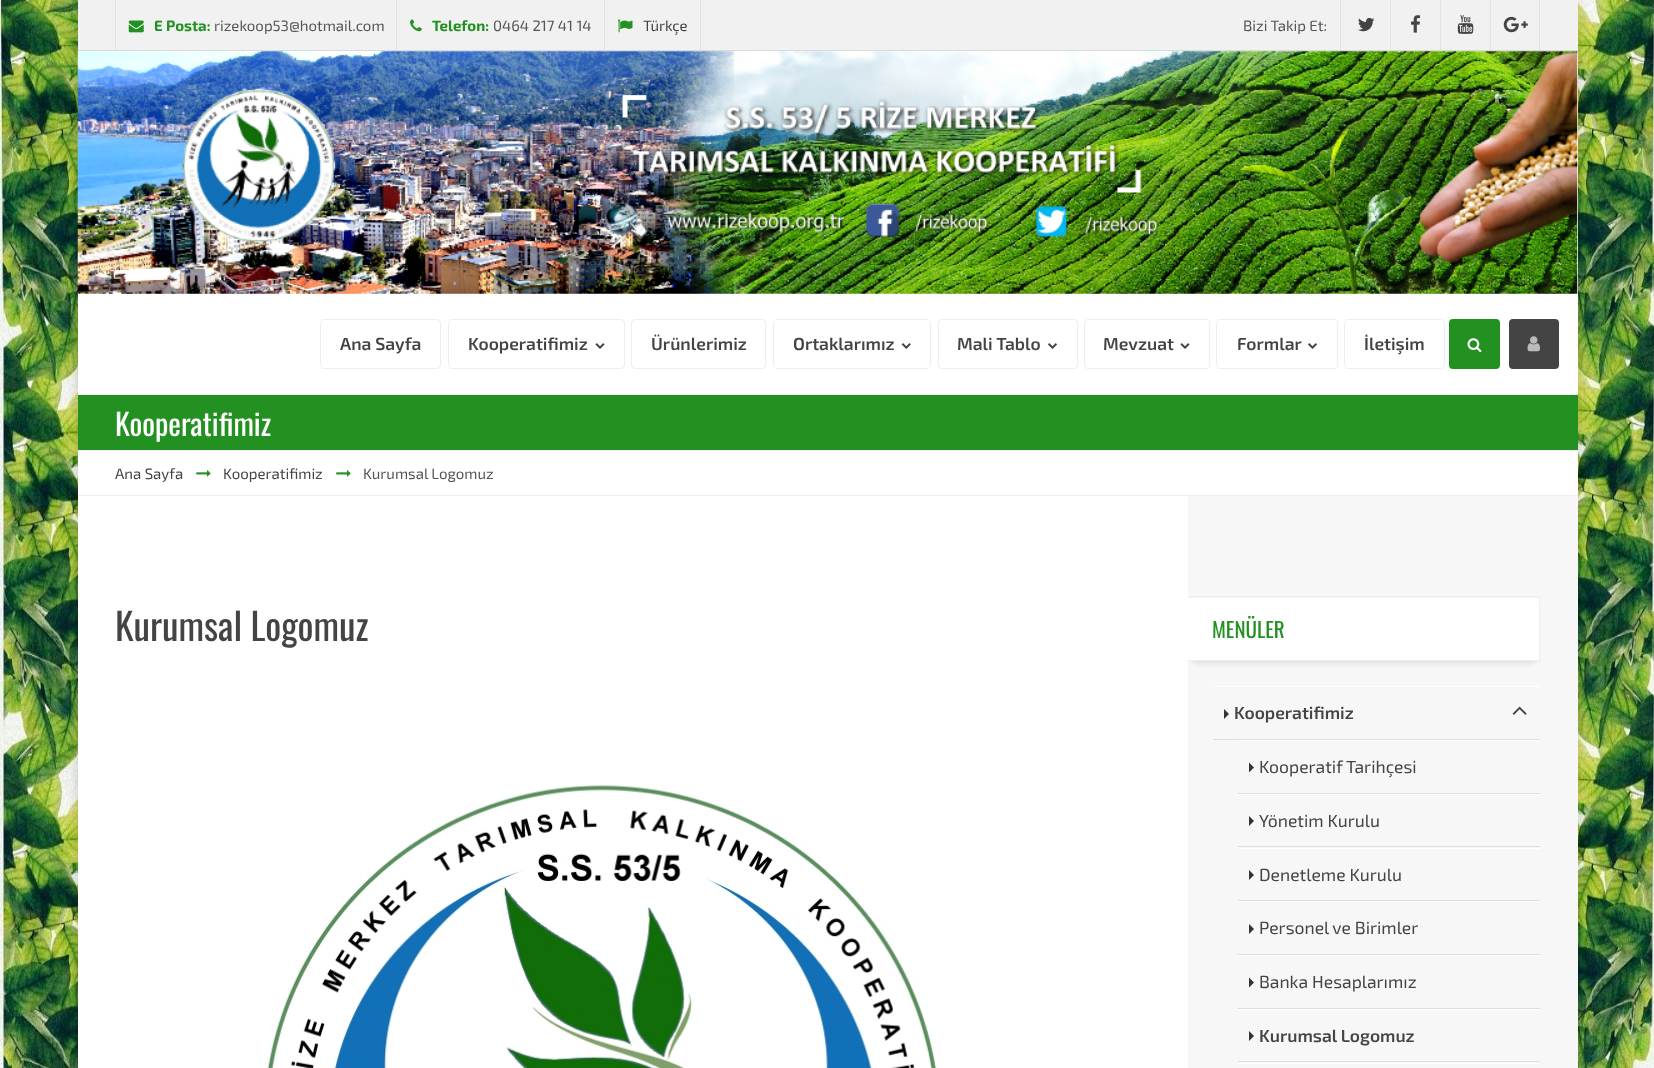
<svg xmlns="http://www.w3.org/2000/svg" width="1654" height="1068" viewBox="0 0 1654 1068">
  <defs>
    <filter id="blur1" x="-50%" y="-200%" width="200%" height="500%"><feGaussianBlur stdDeviation="6"/></filter>
    <filter id="blur2" x="-50%" y="-200%" width="200%" height="500%"><feGaussianBlur stdDeviation="3"/></filter>
  </defs>
  <rect width="100%" height="100%" fill="#ffffff"/>
  <image x="0" y="0" width="1654" height="1068" href="img1.png"/>
  <rect x="78" y="4" width="1500" height="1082" fill="#000000" fill-opacity="0.2" filter="url(#blur1)"/>
  <rect x="78" y="51" width="1500" height="1017" fill="#ffffff"/>
  <rect x="78" y="0" width="1500" height="50" fill="#f1f1f1"/>
  <rect x="78" y="50" width="1500" height="1" fill="#d9d9d9"/>
  <rect x="115" y="0" width="1" height="50" fill="#e3e3e3"/>
  <image x="128" y="20" width="16" height="13" href="img2.png"/>
  <text x="154" y="31" font-family="'Exo 2'" font-size="15" font-weight="bold" fill="#239121">E Posta:</text>
  <text x="214" y="31" font-family="'Exo 2'" font-size="15" fill="#555555">rizekoop53@hotmail.com</text>
  <rect x="396" y="0" width="1" height="50" fill="#e3e3e3"/>
  <image x="410" y="19" width="12" height="13" href="img3.png"/>
  <text x="432" y="31" font-family="'Exo 2'" font-size="15" font-weight="bold" fill="#239121">Telefon:</text>
  <text x="493" y="31" font-family="'Exo 2'" font-size="15" fill="#555555">0464 217 41 14</text>
  <rect x="700" y="0" width="1" height="50" fill="#e3e3e3"/>
  <rect x="604" y="0" width="1" height="50" fill="#e3e3e3"/>
  <image x="618" y="19" width="15" height="14" href="img4.png"/>
  <text x="643" y="31" font-family="'Exo 2'" font-size="15" fill="#444444">Türkçe</text>
  <text x="1243" y="31" font-family="'Exo 2'" font-size="15" fill="#555555">Bizi Takip Et:</text>
  <rect x="1340" y="0" width="1" height="50" fill="#e3e3e3"/>
  <image x="1358" y="17" width="17" height="15" href="img5.png"/>
  <rect x="1390" y="0" width="1" height="50" fill="#e3e3e3"/>
  <image x="1411" y="15" width="10" height="18" href="img6.png"/>
  <rect x="1440" y="0" width="1" height="50" fill="#e3e3e3"/>
  <image x="1457" y="15" width="17" height="19" href="img7.png"/>
  <rect x="1539" y="0" width="1" height="50" fill="#e3e3e3"/>
  <rect x="1490" y="0" width="1" height="50" fill="#e3e3e3"/>
  <image x="1503" y="16" width="25" height="17" href="img8.png"/>
  <image x="77" y="51" width="1501" height="243" href="img9.png"/>
  <rect x="320.5" y="319.5" width="120" height="49" rx="3.5" fill="none" stroke="#eeeeee"/>
  <text x="340" y="350" font-family="'Exo 2'" font-size="17.5" font-weight="600" fill="#444444">Ana Sayfa</text>
  <rect x="448.5" y="319.5" width="176" height="49" rx="3.5" fill="none" stroke="#eeeeee"/>
  <text x="468" y="350" font-family="'Exo 2'" font-size="17.5" font-weight="600" fill="#444444">Kooperatifimiz</text>
  <image x="595" y="343" width="10" height="6" href="img10.png"/>
  <rect x="631.5" y="319.5" width="134" height="49" rx="3.5" fill="none" stroke="#eeeeee"/>
  <text x="651" y="350" font-family="'Exo 2'" font-size="17.5" font-weight="600" fill="#444444">Ürünlerimiz</text>
  <rect x="773.5" y="319.5" width="157" height="49" rx="3.5" fill="none" stroke="#eeeeee"/>
  <text x="793" y="350" font-family="'Exo 2'" font-size="17.5" font-weight="600" fill="#444444">Ortaklarımız</text>
  <image x="901" y="343" width="10" height="6" href="img11.png"/>
  <rect x="938.5" y="319.5" width="139" height="49" rx="3.5" fill="none" stroke="#eeeeee"/>
  <text x="957" y="350" font-family="'Exo 2'" font-size="17.5" font-weight="600" fill="#444444">Mali Tablo</text>
  <image x="1048" y="343" width="9" height="6" href="img12.png"/>
  <rect x="1084.5" y="319.5" width="125" height="49" rx="3.5" fill="none" stroke="#eeeeee"/>
  <text x="1103" y="350" font-family="'Exo 2'" font-size="17.5" font-weight="600" fill="#444444">Mevzuat</text>
  <image x="1180" y="343" width="10" height="6" href="img10.png"/>
  <rect x="1216.5" y="319.5" width="121" height="49" rx="3.5" fill="none" stroke="#eeeeee"/>
  <text x="1237" y="350" font-family="'Exo 2'" font-size="17.5" font-weight="600" fill="#444444">Formlar</text>
  <image x="1308" y="343" width="9" height="6" href="img12.png"/>
  <rect x="1344.5" y="319.5" width="100" height="49" rx="3.5" fill="none" stroke="#eeeeee"/>
  <text x="1364" y="350" font-family="'Exo 2'" font-size="17.5" font-weight="600" fill="#444444">İletişim</text>
  <rect x="1449" y="319" width="51" height="50" rx="4" fill="#239121"/>
  <image x="1467" y="338" width="15" height="15" href="img13.png"/>
  <rect x="1509" y="319" width="50" height="50" rx="4" fill="#444444"/>
  <image x="1527" y="336" width="13" height="16" href="img14.png"/>
  <rect x="78" y="395" width="1500" height="55" fill="#239121"/>
  <rect x="78" y="394" width="1500" height="1" fill="#eeeeee"/>
  <rect x="78" y="450" width="1500" height="1" fill="#eeeeee"/>
  <text x="115" y="436" font-family="Oswald" font-size="30" fill="#ffffff">Kooperatifimiz</text>
  <rect x="78" y="495" width="1500" height="1" fill="#eeeeee"/>
  <text x="115" y="479" font-family="'Exo 2'" font-size="15" fill="#444444">Ana Sayfa</text>
  <image x="196" y="470" width="15" height="7" href="img15.png"/>
  <text x="223" y="479" font-family="'Exo 2'" font-size="15" fill="#444444">Kooperatifimiz</text>
  <image x="336" y="470" width="15" height="7" href="img15.png"/>
  <text x="363" y="479" font-family="'Exo 2'" font-size="15" fill="#555555">Kurumsal Logomuz</text>
  <text x="115" y="641" font-family="Oswald" font-size="37.5" fill="#444444">Kurumsal Logomuz</text>
  <image x="267" y="785" width="670" height="283" href="img16.png"/>
  <rect x="1188" y="496" width="390" height="572" fill="#f7f7f7"/>
  <rect x="1193" y="608" width="342" height="55" fill="#000000" fill-opacity="0.11" filter="url(#blur2)"/>
  <rect x="1188" y="598" width="351" height="62" fill="#ffffff"/>
  <rect x="1188" y="596" width="352" height="1" fill="#eeeeee"/>
  <rect x="1539" y="596" width="1" height="65" fill="#eeeeee"/>
  <rect x="1188" y="660" width="352" height="1" fill="#eeeeee"/>
  <text x="1212" y="638" font-family="Oswald" font-size="21" fill="#239121">MENÜLER</text>
  <rect x="1213" y="686" width="327" height="1" fill="#ffffff"/>
  <rect x="1213" y="739" width="327" height="1" fill="#dedede"/>
  <path d="M1224 719V709L1229 714Z" fill="#333333"/>
  <text x="1234" y="719" font-family="'Exo 2'" font-size="17.5" font-weight="600" fill="#444444">Kooperatifimiz</text>
  <image x="1512" y="706" width="15" height="9" href="img17.png"/>
  <rect x="1238" y="740" width="302" height="1" fill="#ffffff"/>
  <rect x="1238" y="793" width="302" height="1" fill="#dedede"/>
  <path d="M1249 772.5V762.5L1254 767.5Z" fill="#333333"/>
  <text x="1259" y="773" font-family="'Exo 2'" font-size="17.5" fill="#444444">Kooperatif Tarihçesi</text>
  <rect x="1238" y="794" width="302" height="1" fill="#ffffff"/>
  <rect x="1238" y="846" width="302" height="1" fill="#dedede"/>
  <path d="M1249 826V816L1254 821Z" fill="#333333"/>
  <text x="1259" y="827" font-family="'Exo 2'" font-size="17.5" fill="#444444">Yönetim Kurulu</text>
  <rect x="1238" y="848" width="302" height="1" fill="#ffffff"/>
  <rect x="1238" y="900" width="302" height="1" fill="#dedede"/>
  <path d="M1249 880V870L1254 875Z" fill="#333333"/>
  <text x="1259" y="881" font-family="'Exo 2'" font-size="17.5" fill="#444444">Denetleme Kurulu</text>
  <rect x="1238" y="901" width="302" height="1" fill="#ffffff"/>
  <rect x="1238" y="954" width="302" height="1" fill="#dedede"/>
  <path d="M1249 934V924L1254 929Z" fill="#333333"/>
  <text x="1259" y="934" font-family="'Exo 2'" font-size="17.5" fill="#444444">Personel ve Birimler</text>
  <rect x="1238" y="955" width="302" height="1" fill="#ffffff"/>
  <rect x="1238" y="1008" width="302" height="1" fill="#dedede"/>
  <path d="M1249 987.5V977.5L1254 982.5Z" fill="#333333"/>
  <text x="1259" y="988" font-family="'Exo 2'" font-size="17.5" fill="#444444">Banka Hesaplarımız</text>
  <rect x="1238" y="1009" width="302" height="1" fill="#ffffff"/>
  <rect x="1238" y="1061" width="302" height="1" fill="#dedede"/>
  <path d="M1249 1041V1031L1254 1036Z" fill="#333333"/>
  <text x="1259" y="1042" font-family="'Exo 2'" font-size="17.5" font-weight="600" fill="#444444">Kurumsal Logomuz</text>
  <rect x="1238" y="1063" width="302" height="1" fill="#ffffff"/>
</svg>
